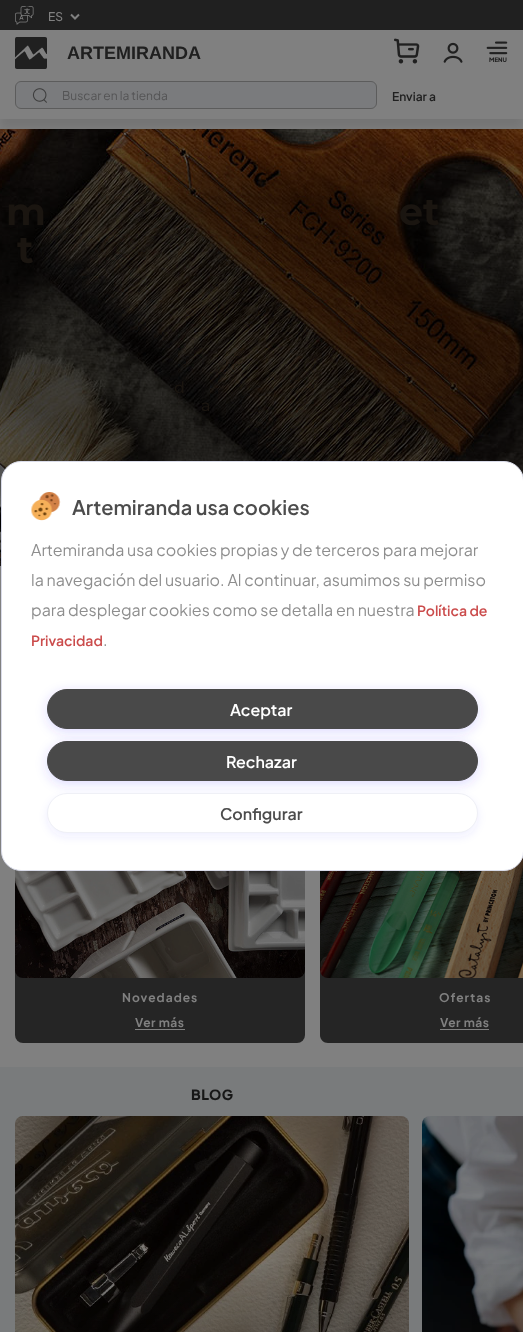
<svg xmlns="http://www.w3.org/2000/svg" width="523" height="1332" viewBox="0 0 523 1332">
  <defs>
    <clipPath id="clip1"><rect x="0" y="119" width="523" height="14"/></clipPath>
    <filter id="blur1" x="-50%" y="-200%" width="200%" height="500%"><feGaussianBlur stdDeviation="5"/></filter>
    <linearGradient id="g1" gradientUnits="userSpaceOnUse" x1="212" y1="1116" x2="212" y2="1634"><stop offset="0.26" stop-color="#000000" stop-opacity="0"/><stop offset="0.96" stop-color="#000000" stop-opacity="0.6"/></linearGradient>
    <linearGradient id="g2" gradientUnits="userSpaceOnUse" x1="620" y1="1116" x2="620" y2="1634"><stop offset="0.26" stop-color="#000000" stop-opacity="0"/><stop offset="0.96" stop-color="#000000" stop-opacity="0.6"/></linearGradient>
    <filter id="blur2" x="-50%" y="-200%" width="200%" height="500%"><feGaussianBlur stdDeviation="6"/></filter>
    <filter id="blur3" x="-50%" y="-200%" width="200%" height="500%"><feGaussianBlur stdDeviation="4"/></filter>
  </defs>
  <rect width="100%" height="100%" fill="#808080"/>
  <image x="0" y="129" width="523" height="437" href="img7.png"/>
  <g clip-path="url(#clip1)">
    <rect x="0" y="10" width="523" height="119" fill="#000000" fill-opacity="0.09" filter="url(#blur1)"/>
  </g>
  <rect x="0" y="0" width="523" height="30" fill="#202020"/>
  <image x="15" y="6" width="19" height="19" href="img1.png"/>
  <path d="M71 14.5L75 18.5L79 14.5" fill="none" stroke="#808080" stroke-width="2"/>
  <text x="48" y="21" font-family="Plus Jakarta Sans" font-size="12" font-weight="500" fill="#808080">ES</text>
  <image x="15" y="37" width="32" height="32" href="img2.png"/>
  <text x="67" y="59" font-family="Liberation Sans" font-size="18" font-weight="bold" fill="#202020">ARTEMIRANDA</text>
  <image x="394" y="38" width="26" height="26" href="img3.png"/>
  <image x="443" y="42" width="20" height="21" href="img4.png"/>
  <image x="486" y="41" width="22" height="14" href="img5.png"/>
  <text x="489" y="62" font-family="Plus Jakarta Sans" font-size="6" font-weight="800" fill="#202020">MENU</text>
  <rect x="15.5" y="81.5" width="361" height="27" rx="5.5" fill="#7a7b7d" stroke="#5c5c5c"/>
  <image x="32" y="88" width="15" height="15" href="img6.png"/>
  <text x="62" y="100" font-family="Plus Jakarta Sans" font-size="12" fill="#545455">Buscar en la tienda</text>
  <text x="392" y="101" font-family="Plus Jakarta Sans" font-size="12" font-weight="600" fill="#202020">Enviar a</text>
  <text x="6" y="225" font-family="Montserrat" font-size="38" font-weight="bold" fill="#1a1510">m</text>
  <text x="399" y="225" font-family="Montserrat" font-size="38" font-weight="bold" fill="#1a1510">et</text>
  <text x="17" y="263" font-family="Montserrat" font-size="38" font-weight="bold" fill="#1a1510">t</text>
  <text x="174" y="393" font-family="Montserrat" font-size="16" font-weight="500" fill="#1a1510">d</text>
  <text x="398" y="393" font-family="Montserrat" font-size="16" font-weight="500" fill="#1a1510">.</text>
  <text x="201" y="411" font-family="Montserrat" font-size="16" font-weight="500" fill="#1a1510">a</text>
  <rect x="15" y="590" width="290" height="453" rx="8" fill="#252525"/>
  <image x="15" y="870" width="290" height="108" href="img8.png"/>
  <text x="122" y="1002" font-family="Plus Jakarta Sans" font-size="12" font-weight="bold" letter-spacing="1" fill="#808080">Novedades</text>
  <text x="135" y="1027" font-family="Plus Jakarta Sans" font-size="12" font-weight="bold" letter-spacing="0.5" fill="#808080">Ver más</text>
  <rect x="135" y="1029" width="50" height="1" fill="#808080"/>
  <path d="M328 590H523V1043H328C323.5 1043 320 1039.5 320 1035V598C320 593.5 323.5 590 328 590Z" fill="#252525"/>
  <image x="320" y="857" width="203" height="121" href="img9.png"/>
  <text x="439" y="1002" font-family="Plus Jakarta Sans" font-size="12" font-weight="bold" letter-spacing="1" fill="#808080">Ofertas</text>
  <text x="440" y="1027" font-family="Plus Jakarta Sans" font-size="12" font-weight="bold" letter-spacing="0.5" fill="#808080">Ver más</text>
  <rect x="440" y="1029" width="49" height="1" fill="#808080"/>
  <rect x="0" y="1067" width="523" height="265" fill="#797b7c"/>
  <text x="191" y="1100" font-family="Plus Jakarta Sans" font-size="14" font-weight="800" letter-spacing="0.5" fill="#171717">BLOG</text>
  <image x="15" y="1116" width="394" height="216" href="img10.png"/>
  <rect x="15" y="1264" width="394" height="68" fill="url(#g1)"/>
  <image x="422" y="1116" width="101" height="216" href="img11.png"/>
  <rect x="472" y="1264" width="51" height="68" fill="url(#g2)"/>
  <rect x="1.5" y="461.5" width="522" height="409" rx="19.5" fill="#ffffff" stroke="#d9dbe9"/>
  <image x="31" y="492" width="30" height="29" href="img12.png"/>
  <text x="72" y="515" font-family="Plus Jakarta Sans" font-size="20" font-weight="600" fill="#4c4c4c">Artemiranda usa cookies</text>
  <text x="31" y="556" font-family="Plus Jakarta Sans" font-size="16" fill="#8e8e8e">Artemiranda usa cookies propias y de terceros para mejorar</text>
  <text x="31" y="586" font-family="Plus Jakarta Sans" font-size="16" fill="#8e8e8e">la navegación del usuario. Al continuar, asumimos su permiso</text>
  <text x="31" y="616" font-family="Plus Jakarta Sans" font-size="16" fill="#8e8e8e">para desplegar cookies como se detalla en nuestra</text>
  <text x="417" y="616" font-family="Plus Jakarta Sans" font-size="14" font-weight="600" fill="#cb4c4c">Política de</text>
  <text x="31" y="646" font-family="Plus Jakarta Sans" font-size="14" font-weight="600" fill="#cb4c4c">Privacidad</text>
  <text x="103" y="646" font-family="Plus Jakarta Sans" font-size="16" fill="#8e8e8e">.</text>
  <rect x="47" y="692" width="431" height="40" rx="20" fill="#4a3aff" fill-opacity="0.18" filter="url(#blur2)"/>
  <rect x="47.5" y="689.5" width="430" height="39" rx="19.5" fill="#494949" stroke="#494949"/>
  <text x="230" y="716" font-family="Plus Jakarta Sans" font-size="16" font-weight="600" fill="#ffffff">Aceptar</text>
  <rect x="47" y="744" width="431" height="40" rx="20" fill="#4a3aff" fill-opacity="0.18" filter="url(#blur2)"/>
  <rect x="47.5" y="741.5" width="430" height="39" rx="19.5" fill="#494949" stroke="#494949"/>
  <text x="226" y="768" font-family="Plus Jakarta Sans" font-size="16" font-weight="600" fill="#ffffff">Rechazar</text>
  <rect x="47" y="797" width="431" height="40" rx="20" fill="#4a3aff" fill-opacity="0.08" filter="url(#blur3)"/>
  <rect x="47.5" y="793.5" width="430" height="39" rx="19.5" fill="#ffffff" stroke="#eff0f6"/>
  <text x="220" y="820" font-family="Plus Jakarta Sans" font-size="16" font-weight="600" fill="#4c4c4c">Configurar</text>
</svg>
